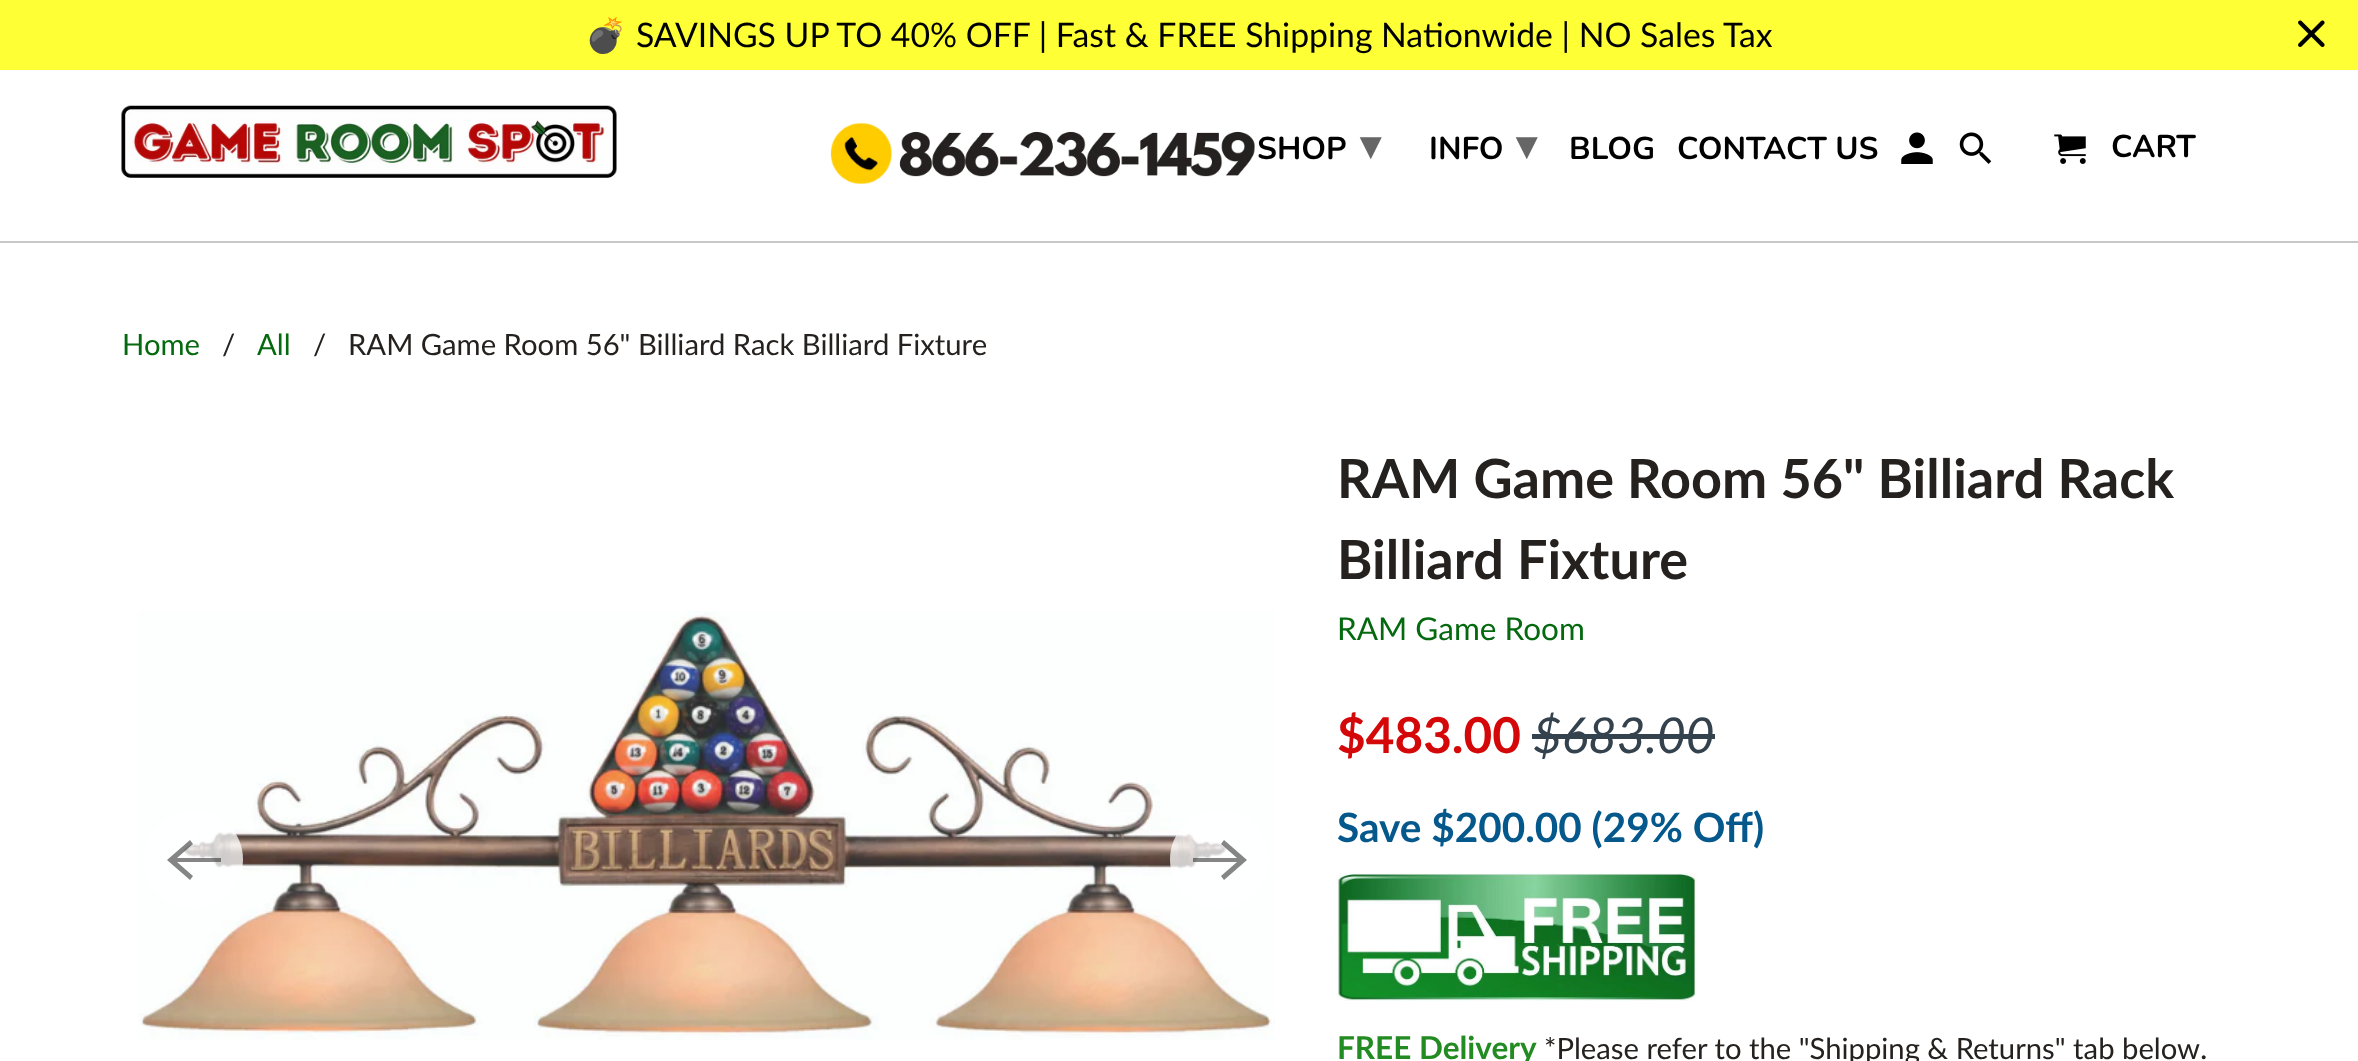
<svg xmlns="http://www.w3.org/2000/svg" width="2358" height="1061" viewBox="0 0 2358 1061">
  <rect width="100%" height="100%" fill="#ffffff"/>
  <rect x="0" y="0" width="2358" height="70" fill="#feff34"/>
  <text x="585" y="47" font-family="Noto Color Emoji" font-size="33.75" fill="#000000">💣</text>
  <text x="636" y="47" font-family="Lato" font-size="33.75" fill="#000000">SAVINGS UP TO 40% OFF | Fast &amp; FREE Shipping Nationwide | NO Sales Tax</text>
  <image x="2298" y="20" width="27" height="27" href="img1.png"/>
  <rect x="0" y="241" width="2358" height="2" fill="#c7c7c7"/>
  <image x="121" y="105" width="496" height="73" href="img2.png"/>
  <image x="830" y="122" width="425" height="62" href="img3.png"/>
  <text x="1257" y="159" font-family="Nunito" font-size="31.5" font-weight="bold" fill="#000000">SHOP</text>
  <text x="1360" y="159" font-family="DejaVu Sans" font-size="40.5" font-weight="bold" fill="#666666">▾</text>
  <text x="1429" y="159" font-family="Nunito" font-size="31.5" font-weight="bold" fill="#000000">INFO</text>
  <text x="1516" y="159" font-family="DejaVu Sans" font-size="40.5" font-weight="bold" fill="#666666">▾</text>
  <text x="1569" y="159" font-family="Nunito" font-size="31.5" font-weight="bold" fill="#000000">BLOG</text>
  <text x="1677" y="159" font-family="Nunito" font-size="31.5" font-weight="bold" fill="#000000">CONTACT US</text>
  <image x="1901" y="132" width="32" height="32" href="img4.png"/>
  <image x="1959" y="132" width="33" height="32" href="img5.png"/>
  <image x="2054" y="134" width="32" height="30" href="img6.png"/>
  <text x="2111" y="157" font-family="Nunito" font-size="31.5" font-weight="bold" fill="#000000">CART</text>
  <text x="122" y="355" font-family="Lato" font-size="29.25" fill="#05690f">Home</text>
  <text x="222" y="355" font-family="Lato" font-size="29.25" fill="#25211f">/</text>
  <text x="257" y="355" font-family="Lato" font-size="29.25" fill="#05690f">All</text>
  <text x="313" y="355" font-family="Lato" font-size="29.25" fill="#25211f">/</text>
  <text x="348" y="355" font-family="Lato" font-size="29.25" fill="#25211f">RAM Game Room 56" Billiard Rack Billiard Fixture</text>
  <image x="138" y="611" width="1137" height="429" href="img7.png"/>
  <circle cx="193.5" cy="859.5" r="49.5" fill="#ffffff" fill-opacity="0.75"/>
  <path d="M221 858H177L193 844L190 840L167 860L190 880L193 876L177 862H221Z" fill="#333333" fill-opacity="0.6"/>
  <circle cx="1219.5" cy="859.5" r="49.5" fill="#ffffff" fill-opacity="0.75"/>
  <path d="M1193 862H1237L1221 876L1224 880L1247 860L1224 840L1221 844L1237 858H1193Z" fill="#333333" fill-opacity="0.6"/>
  <text x="1337" y="498" font-family="Lato" font-size="54" font-weight="bold" fill="#25211f">RAM Game Room 56" Billiard Rack</text>
  <text x="1337" y="579" font-family="Lato" font-size="54" font-weight="bold" fill="#25211f">Billiard Fixture</text>
  <text x="1337" y="640" font-family="Lato" font-size="31.5" fill="#05690f">RAM Game Room</text>
  <text x="1337" y="753" font-family="Lato" font-size="49.5" font-weight="bold" fill="#d40808">$483.00</text>
  <text x="1533" y="753" font-family="Lato" font-size="49.5" font-style="italic" fill="#34424e">$683.00</text>
  <rect x="1532" y="734" width="183" height="5" fill="#34424e"/>
  <text x="1337" y="842" font-family="Lato" font-size="40.5" font-weight="bold" fill="#04588c">Save $200.00 (29% Off)</text>
  <image x="1336" y="873" width="361" height="128" href="img8.png"/>
  <text x="1337" y="1059" font-family="Lato" font-size="31.5" font-weight="bold" fill="#228b22">FREE Delivery</text>
  <text x="1544" y="1059" font-family="Lato" font-size="29.25" fill="#25211f">*Please refer to the "Shipping &amp; Returns" tab below</text>
  <text x="2200" y="1059" font-family="Lato" font-size="31.5" fill="#25211f">.</text>
</svg>
